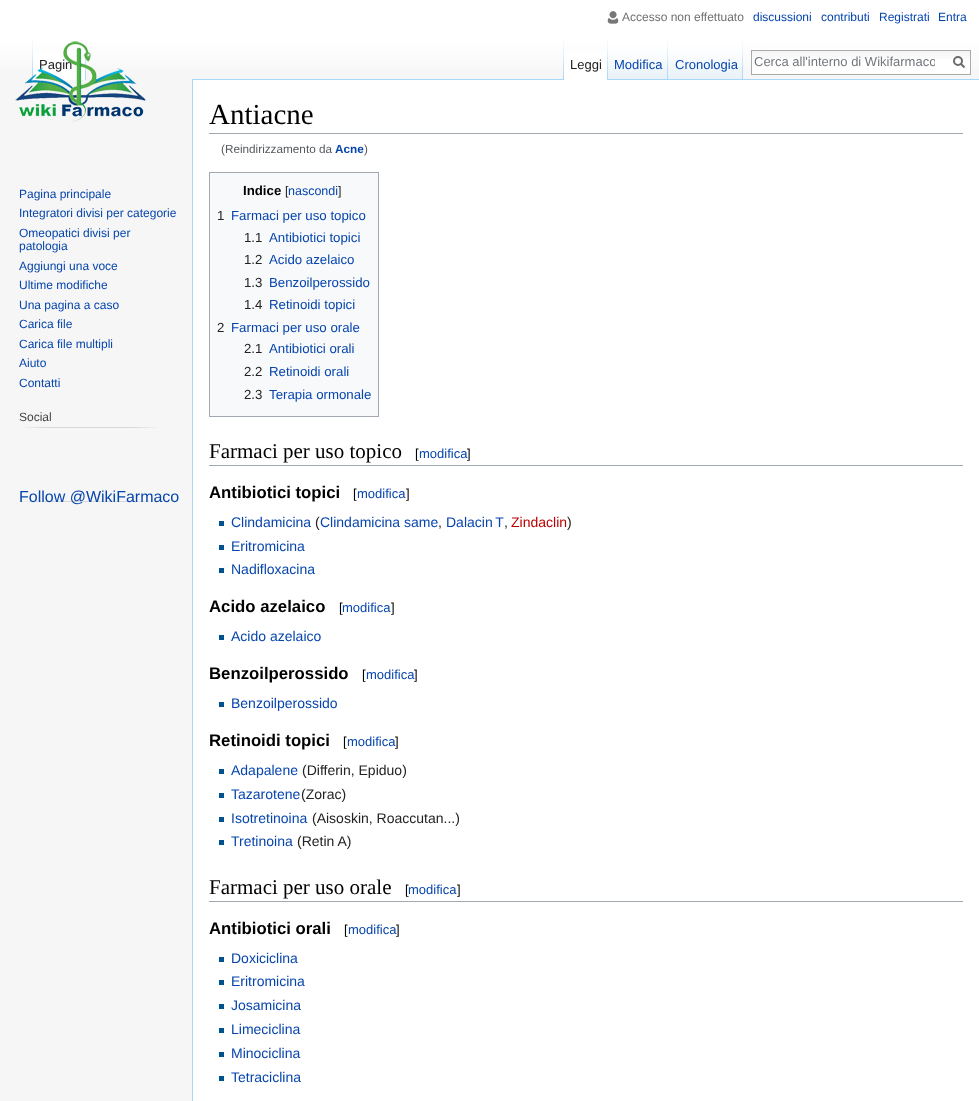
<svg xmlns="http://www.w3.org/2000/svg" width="979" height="1101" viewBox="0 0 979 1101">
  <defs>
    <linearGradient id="g1" gradientUnits="userSpaceOnUse" x1="490" y1="0" x2="490" y2="80"><stop offset="0.5" stop-color="#ffffff"/><stop offset="1" stop-color="#f6f6f6"/></linearGradient>
    <clipPath id="clip1"><rect x="754" y="54" width="181" height="15"/></clipPath>
  </defs>
  <rect width="100%" height="100%" fill="#f6f6f6"/>
  <rect x="0" y="0" width="979" height="69" fill="url(#g1)"/>
  <image x="607" y="11" width="12" height="13" href="img1.png"/>
  <text x="622" y="21" font-family="Liberation Sans" font-size="12" fill="#707070">Accesso non effettuato</text>
  <text x="753" y="21" font-family="Liberation Sans" font-size="12" fill="#0645ad">discussioni</text>
  <text x="821" y="21" font-family="Liberation Sans" font-size="12" fill="#0645ad">contributi</text>
  <text x="879" y="21" font-family="Liberation Sans" font-size="12" fill="#0645ad">Registrati</text>
  <text x="938" y="21" font-family="Liberation Sans" font-size="12" fill="#0645ad">Entra</text>
  <image x="32" y="40" width="1" height="40" href="img2.png"/>
  <rect x="33" y="51" width="52" height="29" fill="#ffffff"/>
  <image x="85" y="40" width="1" height="40" href="img2.png"/>
  <text x="39" y="69" font-family="Liberation Sans" font-size="13" fill="#222222">Pagin</text>
  <image x="563" y="40" width="1" height="39" href="img3.png"/>
  <rect x="192" y="79" width="787" height="1" fill="#a7d7f9"/>
  <rect x="564" y="51" width="43" height="29" fill="#ffffff"/>
  <image x="607" y="40" width="1" height="40" href="img2.png"/>
  <text x="570" y="69" font-family="Liberation Sans" font-size="13" fill="#222222">Leggi</text>
  <image x="608" y="40" width="60" height="40" href="img4.png"/>
  <image x="667" y="40" width="1" height="39" href="img3.png"/>
  <text x="614" y="69" font-family="Liberation Sans" font-size="13" fill="#0645ad">Modifica</text>
  <image x="668" y="40" width="75" height="40" href="img5.png"/>
  <image x="742" y="40" width="1" height="39" href="img3.png"/>
  <text x="675" y="69" font-family="Liberation Sans" font-size="13" fill="#0645ad">Cronologia</text>
  <rect x="752" y="59" width="218" height="15" fill="#ffffff"/>
  <image x="752" y="51" width="218" height="8" href="img6.png"/>
  <rect x="751.5" y="50.5" width="219" height="24" fill="none" stroke="#aaaaaa"/>
  <g clip-path="url(#clip1)">
    <text x="754" y="66" font-family="Liberation Sans" font-size="13" fill="#72777d">Cerca all'interno di Wikifarmaco</text>
  </g>
  <path d="M964.5 67.5L960.5 63.5" fill="none" stroke="#6c6c6c" stroke-width="2"/>
  <circle cx="958" cy="61" r="4" fill="none" stroke="#6c6c6c" stroke-width="2"/>
  <image x="15" y="41" width="131" height="82" href="img7.png"/>
  <text x="19" y="198" font-family="Liberation Sans" font-size="12" fill="#0645ad">Pagina principale</text>
  <text x="19" y="217" font-family="Liberation Sans" font-size="12" fill="#0645ad">Integratori divisi per categorie</text>
  <text x="19" y="237" font-family="Liberation Sans" font-size="12" fill="#0645ad">Omeopatici divisi per</text>
  <text x="19" y="250" font-family="Liberation Sans" font-size="12" fill="#0645ad">patologia</text>
  <text x="19" y="270" font-family="Liberation Sans" font-size="12" fill="#0645ad">Aggiungi una voce</text>
  <text x="19" y="289" font-family="Liberation Sans" font-size="12" fill="#0645ad">Ultime modifiche</text>
  <text x="19" y="309" font-family="Liberation Sans" font-size="12" fill="#0645ad">Una pagina a caso</text>
  <text x="19" y="328" font-family="Liberation Sans" font-size="12" fill="#0645ad">Carica file</text>
  <text x="19" y="348" font-family="Liberation Sans" font-size="12" fill="#0645ad">Carica file multipli</text>
  <text x="19" y="367" font-family="Liberation Sans" font-size="12" fill="#0645ad">Aiuto</text>
  <text x="19" y="387" font-family="Liberation Sans" font-size="12" fill="#0645ad">Contatti</text>
  <text x="19" y="421" font-family="Liberation Sans" font-size="12" fill="#444444">Social</text>
  <image x="22" y="427" width="135" height="1" href="img8.png"/>
  <image x="22" y="501" width="135" height="1" href="img8.png"/>
  <text x="19" y="502" font-family="Liberation Sans" font-size="16" fill="#0645ad">Follow @WikiFarmaco</text>
  <rect x="193" y="80" width="786" height="1021" fill="#ffffff"/>
  <rect x="192" y="79" width="1" height="1022" fill="#a7d7f9"/>
  <rect x="209" y="133" width="754" height="1" fill="#a2a9b1"/>
  <text x="209" y="124" font-family="Liberation Serif" font-size="29" fill="#000000">Antiacne</text>
  <text x="221" y="153" font-family="Liberation Sans" font-size="11.75" fill="#54595d">(Reindirizzamento da</text>
  <text x="335" y="153" font-family="Liberation Sans" font-size="11.75" font-weight="bold" fill="#0645ad">Acne</text>
  <text x="364" y="153" font-family="Liberation Sans" font-size="11.75" fill="#54595d">)</text>
  <rect x="209.5" y="172.5" width="169" height="244" fill="#f8f9fa" stroke="#a2a9b1"/>
  <text x="243" y="195" font-family="Liberation Sans" font-size="13.25" font-weight="bold" fill="#000000">Indice</text>
  <text x="285" y="195" font-family="Liberation Sans" font-size="12.5" fill="#222222">[</text>
  <text x="288" y="195" font-family="Liberation Sans" font-size="12.5" fill="#0645ad">nascondi</text>
  <text x="338" y="195" font-family="Liberation Sans" font-size="12.5" fill="#222222">]</text>
  <text x="217" y="220" font-family="Liberation Sans" font-size="13.25" fill="#222222">1</text>
  <text x="231" y="220" font-family="Liberation Sans" font-size="13.25" fill="#0645ad">Farmaci per uso topico</text>
  <text x="244" y="242" font-family="Liberation Sans" font-size="13.25" fill="#222222">1.1</text>
  <text x="269" y="242" font-family="Liberation Sans" font-size="13.25" fill="#0645ad">Antibiotici topici</text>
  <text x="244" y="264" font-family="Liberation Sans" font-size="13.25" fill="#222222">1.2</text>
  <text x="269" y="264" font-family="Liberation Sans" font-size="13.25" fill="#0645ad">Acido azelaico</text>
  <text x="244" y="287" font-family="Liberation Sans" font-size="13.25" fill="#222222">1.3</text>
  <text x="269" y="287" font-family="Liberation Sans" font-size="13.25" fill="#0645ad">Benzoilperossido</text>
  <text x="244" y="309" font-family="Liberation Sans" font-size="13.25" fill="#222222">1.4</text>
  <text x="269" y="309" font-family="Liberation Sans" font-size="13.25" fill="#0645ad">Retinoidi topici</text>
  <text x="217" y="332" font-family="Liberation Sans" font-size="13.25" fill="#222222">2</text>
  <text x="231" y="332" font-family="Liberation Sans" font-size="13.25" fill="#0645ad">Farmaci per uso orale</text>
  <text x="244" y="353" font-family="Liberation Sans" font-size="13.25" fill="#222222">2.1</text>
  <text x="269" y="353" font-family="Liberation Sans" font-size="13.25" fill="#0645ad">Antibiotici orali</text>
  <text x="244" y="376" font-family="Liberation Sans" font-size="13.25" fill="#222222">2.2</text>
  <text x="269" y="376" font-family="Liberation Sans" font-size="13.25" fill="#0645ad">Retinoidi orali</text>
  <text x="244" y="399" font-family="Liberation Sans" font-size="13.25" fill="#222222">2.3</text>
  <text x="269" y="399" font-family="Liberation Sans" font-size="13.25" fill="#0645ad">Terapia ormonale</text>
  <rect x="209" y="465" width="754" height="1" fill="#a2a9b1"/>
  <text x="209" y="458" font-family="Liberation Serif" font-size="21" fill="#000000">Farmaci per uso topico</text>
  <text x="415" y="458" font-family="Liberation Sans" font-size="13" fill="#000000">[</text>
  <text x="419" y="458" font-family="Liberation Sans" font-size="13" fill="#0645ad">modifica</text>
  <text x="467" y="458" font-family="Liberation Sans" font-size="13" fill="#000000">]</text>
  <text x="209" y="498" font-family="Liberation Sans" font-size="16.75" font-weight="bold" fill="#000000">Antibiotici topici</text>
  <text x="353" y="498" font-family="Liberation Sans" font-size="13" fill="#000000">[</text>
  <text x="357" y="498" font-family="Liberation Sans" font-size="13" fill="#0645ad">modifica</text>
  <text x="406" y="498" font-family="Liberation Sans" font-size="13" fill="#000000">]</text>
  <rect x="219" y="521" width="5" height="5" fill="#00528c"/>
  <text x="231" y="527" font-family="Liberation Sans" font-size="14" fill="#0645ad">Clindamicina</text>
  <text x="315" y="527" font-family="Liberation Sans" font-size="14" fill="#222222">(</text>
  <text x="320" y="527" font-family="Liberation Sans" font-size="14" fill="#0645ad">Clindamicina same</text>
  <text x="438" y="527" font-family="Liberation Sans" font-size="14" fill="#222222">,</text>
  <text x="446" y="527" word-spacing="-1" font-family="Liberation Sans" font-size="14" fill="#0645ad">Dalacin T</text>
  <text x="504" y="527" font-family="Liberation Sans" font-size="14" fill="#222222">,</text>
  <text x="511" y="527" font-family="Liberation Sans" font-size="14" fill="#ba0000">Zindaclin</text>
  <text x="567" y="527" font-family="Liberation Sans" font-size="14" fill="#222222">)</text>
  <rect x="219" y="545" width="5" height="5" fill="#00528c"/>
  <text x="231" y="551" font-family="Liberation Sans" font-size="14" fill="#0645ad">Eritromicina</text>
  <rect x="219" y="568" width="5" height="5" fill="#00528c"/>
  <text x="231" y="574" font-family="Liberation Sans" font-size="14" fill="#0645ad">Nadifloxacina</text>
  <text x="209" y="612" font-family="Liberation Sans" font-size="16.75" font-weight="bold" fill="#000000">Acido azelaico</text>
  <text x="339" y="612" font-family="Liberation Sans" font-size="13" fill="#000000">[</text>
  <text x="342" y="612" font-family="Liberation Sans" font-size="13" fill="#0645ad">modifica</text>
  <text x="391" y="612" font-family="Liberation Sans" font-size="13" fill="#000000">]</text>
  <rect x="219" y="635" width="5" height="5" fill="#00528c"/>
  <text x="231" y="641" font-family="Liberation Sans" font-size="14" fill="#0645ad">Acido azelaico</text>
  <text x="209" y="679" font-family="Liberation Sans" font-size="16.75" font-weight="bold" fill="#000000">Benzoilperossido</text>
  <text x="362" y="679" font-family="Liberation Sans" font-size="13" fill="#000000">[</text>
  <text x="366" y="679" font-family="Liberation Sans" font-size="13" fill="#0645ad">modifica</text>
  <text x="414" y="679" font-family="Liberation Sans" font-size="13" fill="#000000">]</text>
  <rect x="219" y="702" width="5" height="5" fill="#00528c"/>
  <text x="231" y="708" font-family="Liberation Sans" font-size="14" fill="#0645ad">Benzoilperossido</text>
  <text x="209" y="746" font-family="Liberation Sans" font-size="16.75" font-weight="bold" fill="#000000">Retinoidi topici</text>
  <text x="343" y="746" font-family="Liberation Sans" font-size="13" fill="#000000">[</text>
  <text x="347" y="746" font-family="Liberation Sans" font-size="13" fill="#0645ad">modifica</text>
  <text x="395" y="746" font-family="Liberation Sans" font-size="13" fill="#000000">]</text>
  <rect x="219" y="769" width="5" height="5" fill="#00528c"/>
  <text x="231" y="775" font-family="Liberation Sans" font-size="14" fill="#0645ad">Adapalene</text>
  <text x="302" y="775" font-family="Liberation Sans" font-size="14" fill="#222222">(Differin, Epiduo)</text>
  <rect x="219" y="793" width="5" height="5" fill="#00528c"/>
  <text x="231" y="799" font-family="Liberation Sans" font-size="14" fill="#0645ad">Tazarotene</text>
  <text x="301" y="799" font-family="Liberation Sans" font-size="14" fill="#222222">(Zorac)</text>
  <rect x="219" y="817" width="5" height="5" fill="#00528c"/>
  <text x="231" y="823" font-family="Liberation Sans" font-size="14" fill="#0645ad">Isotretinoina</text>
  <text x="312" y="823" font-family="Liberation Sans" font-size="14" fill="#222222">(Aisoskin, Roaccutan...)</text>
  <rect x="219" y="840" width="5" height="5" fill="#00528c"/>
  <text x="231" y="846" font-family="Liberation Sans" font-size="14" fill="#0645ad">Tretinoina</text>
  <text x="297" y="846" font-family="Liberation Sans" font-size="14" fill="#222222">(Retin A)</text>
  <rect x="209" y="901" width="754" height="1" fill="#a2a9b1"/>
  <text x="209" y="894" font-family="Liberation Serif" font-size="21" fill="#000000">Farmaci per uso orale</text>
  <text x="405" y="894" font-family="Liberation Sans" font-size="13" fill="#000000">[</text>
  <text x="408" y="894" font-family="Liberation Sans" font-size="13" fill="#0645ad">modifica</text>
  <text x="457" y="894" font-family="Liberation Sans" font-size="13" fill="#000000">]</text>
  <text x="209" y="934" font-family="Liberation Sans" font-size="16.75" font-weight="bold" fill="#000000">Antibiotici orali</text>
  <text x="344" y="934" font-family="Liberation Sans" font-size="13" fill="#000000">[</text>
  <text x="348" y="934" font-family="Liberation Sans" font-size="13" fill="#0645ad">modifica</text>
  <text x="396" y="934" font-family="Liberation Sans" font-size="13" fill="#000000">]</text>
  <rect x="219" y="957" width="5" height="5" fill="#00528c"/>
  <text x="231" y="963" font-family="Liberation Sans" font-size="14" fill="#0645ad">Doxiciclina</text>
  <rect x="219" y="980" width="5" height="5" fill="#00528c"/>
  <text x="231" y="986" font-family="Liberation Sans" font-size="14" fill="#0645ad">Eritromicina</text>
  <rect x="219" y="1004" width="5" height="5" fill="#00528c"/>
  <text x="231" y="1010" font-family="Liberation Sans" font-size="14" fill="#0645ad">Josamicina</text>
  <rect x="219" y="1028" width="5" height="5" fill="#00528c"/>
  <text x="231" y="1034" font-family="Liberation Sans" font-size="14" fill="#0645ad">Limeciclina</text>
  <rect x="219" y="1052" width="5" height="5" fill="#00528c"/>
  <text x="231" y="1058" font-family="Liberation Sans" font-size="14" fill="#0645ad">Minociclina</text>
  <rect x="219" y="1076" width="5" height="5" fill="#00528c"/>
  <text x="231" y="1082" font-family="Liberation Sans" font-size="14" fill="#0645ad">Tetraciclina</text>
</svg>
